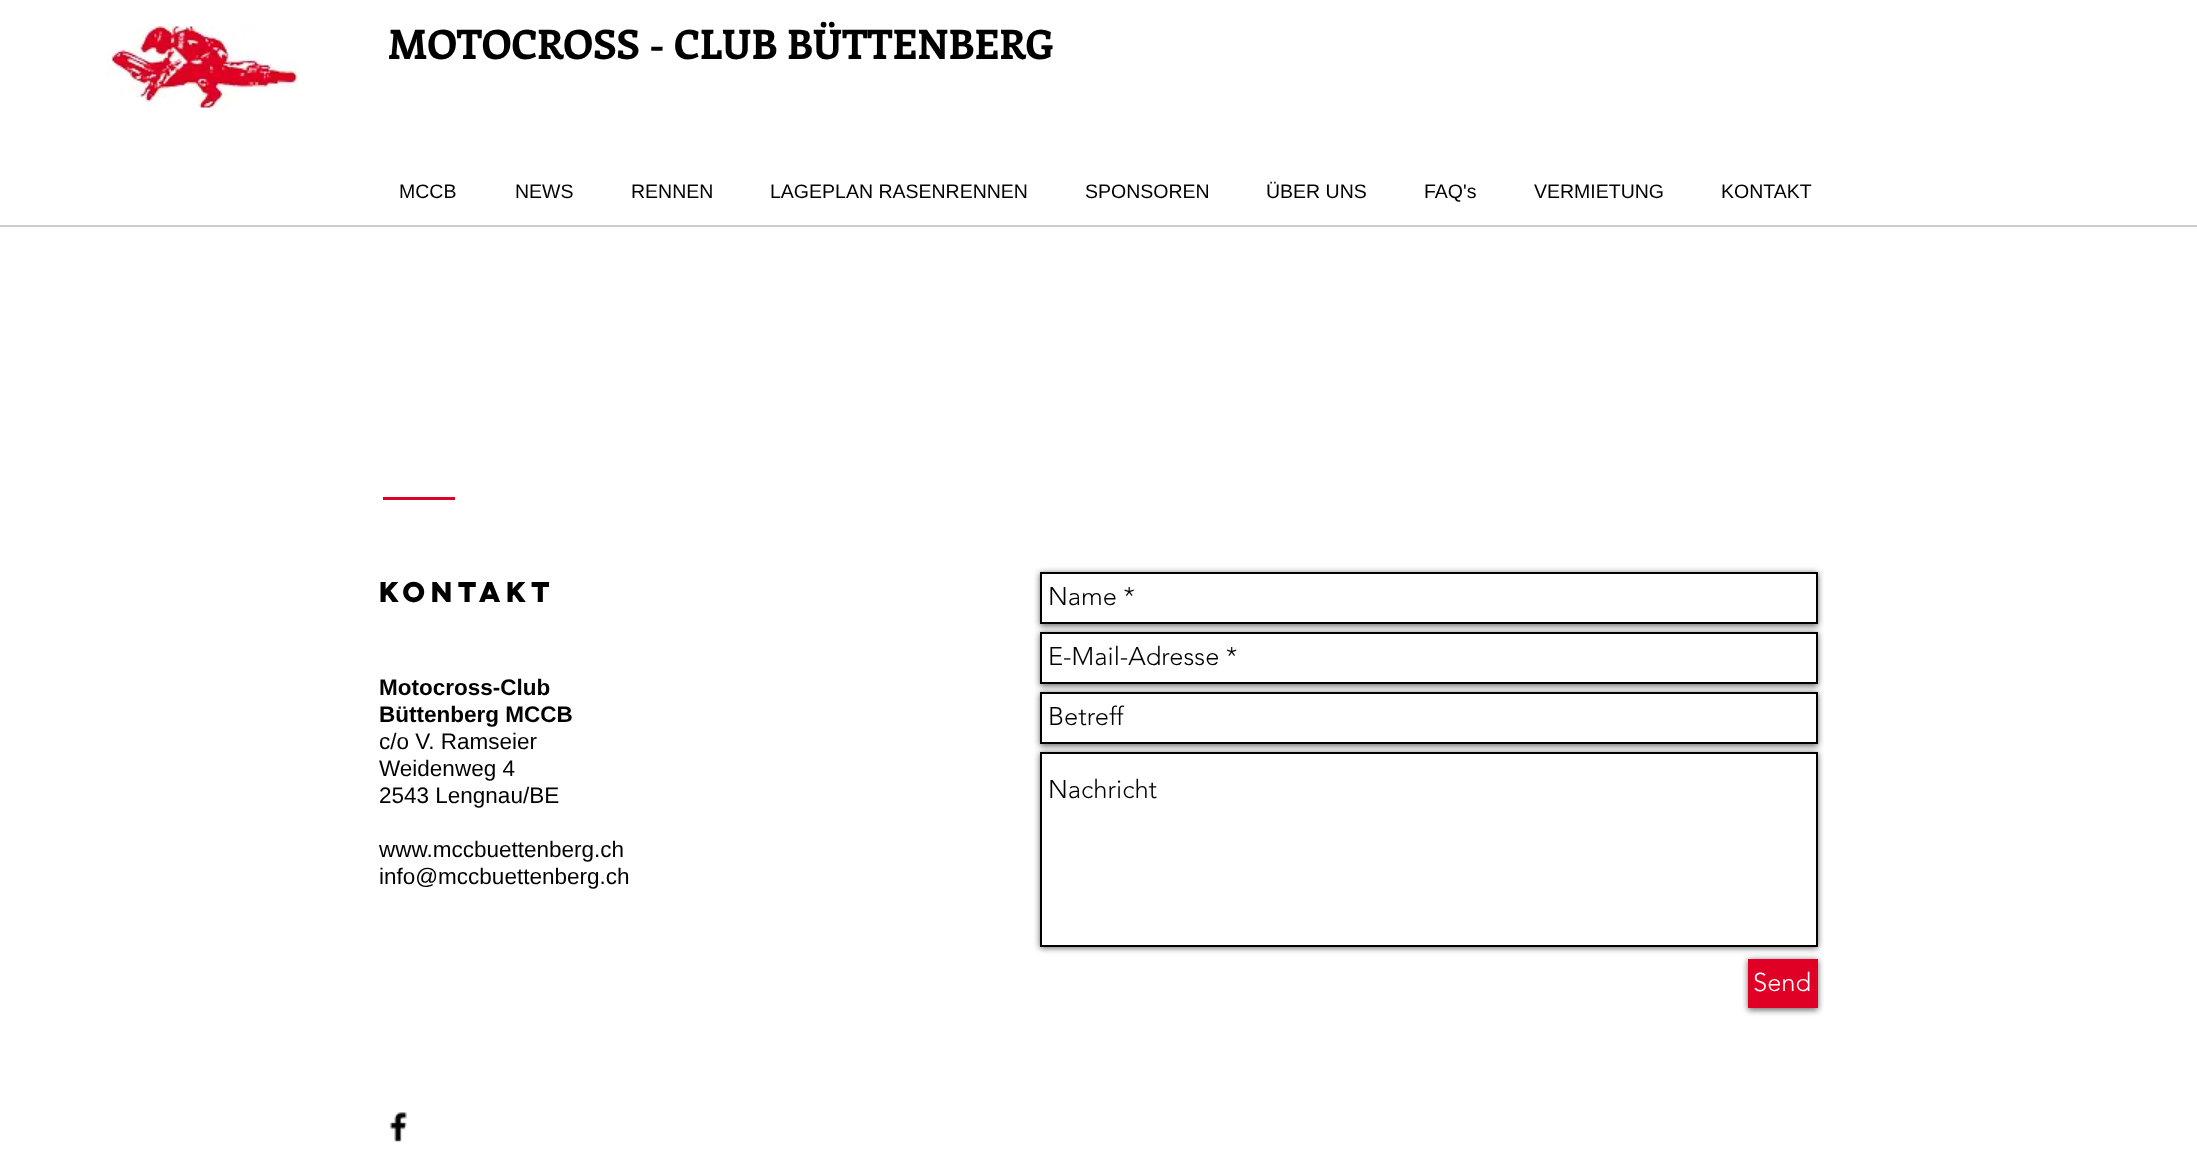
<svg xmlns="http://www.w3.org/2000/svg" width="2197" height="1151" viewBox="0 0 2197 1151">
  <defs>
    <clipPath id="clip1"><path d="M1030 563H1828V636H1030ZM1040 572H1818V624H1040Z" clip-rule="evenodd"/></clipPath>
    <filter id="blur1" x="-50%" y="-200%" width="200%" height="500%"><feGaussianBlur stdDeviation="3"/></filter>
    <clipPath id="clip2"><path d="M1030 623H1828V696H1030ZM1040 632H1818V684H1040Z" clip-rule="evenodd"/></clipPath>
    <clipPath id="clip3"><path d="M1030 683H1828V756H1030ZM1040 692H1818V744H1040Z" clip-rule="evenodd"/></clipPath>
    <clipPath id="clip4"><path d="M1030 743H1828V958H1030ZM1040 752H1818V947H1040Z" clip-rule="evenodd"/></clipPath>
  </defs>
  <rect width="100%" height="100%" fill="#ffffff"/>
  <image x="106" y="26" width="193" height="82" href="img1.png"/>
  <text x="388" y="59" font-family="Enriqueta" font-size="40.5" font-weight="bold" fill="#000000">MOTOCROSS - CLUB BÜTTENBERG</text>
  <text x="399" y="198" font-family="Liberation Sans" font-size="19.5" fill="#000000">MCCB</text>
  <text x="515" y="198" font-family="Liberation Sans" font-size="19.5" fill="#000000">NEWS</text>
  <text x="631" y="198" font-family="Liberation Sans" font-size="19.5" fill="#000000">RENNEN</text>
  <text x="770" y="198" font-family="Liberation Sans" font-size="19.5" fill="#000000">LAGEPLAN RASENRENNEN</text>
  <text x="1085" y="198" font-family="Liberation Sans" font-size="19.5" fill="#000000">SPONSOREN</text>
  <text x="1266" y="198" font-family="Liberation Sans" font-size="19.5" fill="#000000">ÜBER UNS</text>
  <text x="1424" y="198" font-family="Liberation Sans" font-size="19.5" fill="#000000">FAQ's</text>
  <text x="1534" y="198" font-family="Liberation Sans" font-size="19.5" fill="#000000">VERMIETUNG</text>
  <text x="1721" y="198" font-family="Liberation Sans" font-size="19.5" fill="#000000">KONTAKT</text>
  <rect x="0" y="225" width="2197" height="2" fill="#cccccc"/>
  <rect x="383" y="497" width="72" height="3" fill="#e00025"/>
  <text x="379" y="602" font-family="'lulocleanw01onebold'" font-size="25.5" font-weight="bold" fill="#000000">kontakt</text>
  <g clip-path="url(#clip1)">
    <rect x="1040" y="573" width="778" height="53" fill="#000000" fill-opacity="0.6" filter="url(#blur1)"/>
  </g>
  <rect x="1041" y="573" width="776" height="50" fill="none" stroke="#000000" stroke-width="2"/>
  <text x="1048" y="605" font-family="'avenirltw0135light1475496'" font-size="25.5" font-weight="300" fill="#000000">Name *</text>
  <g clip-path="url(#clip2)">
    <rect x="1040" y="633" width="778" height="53" fill="#000000" fill-opacity="0.6" filter="url(#blur1)"/>
  </g>
  <rect x="1041" y="633" width="776" height="50" fill="none" stroke="#000000" stroke-width="2"/>
  <text x="1048" y="665" font-family="'avenirltw0135light1475496'" font-size="25.5" font-weight="300" fill="#000000">E-Mail-Adresse *</text>
  <g clip-path="url(#clip3)">
    <rect x="1040" y="693" width="778" height="53" fill="#000000" fill-opacity="0.6" filter="url(#blur1)"/>
  </g>
  <rect x="1041" y="693" width="776" height="50" fill="none" stroke="#000000" stroke-width="2"/>
  <text x="1048" y="725" font-family="'avenirltw0135light1475496'" font-size="25.5" font-weight="300" fill="#000000">Betreff</text>
  <g clip-path="url(#clip4)">
    <rect x="1040" y="753" width="778" height="195" fill="#000000" fill-opacity="0.6" filter="url(#blur1)"/>
  </g>
  <rect x="1041" y="753" width="776" height="193" fill="none" stroke="#000000" stroke-width="2"/>
  <text x="1048" y="798" font-family="'avenirltw0135light1475496'" font-size="25.5" font-weight="300" fill="#000000">Nachricht</text>
  <rect x="1748" y="960" width="70" height="50" fill="#000000" fill-opacity="0.6" filter="url(#blur1)"/>
  <rect x="1748" y="959" width="70" height="49" fill="#e00025"/>
  <text x="1753" y="991" font-family="'avenirltw0135light1475496'" font-size="25.5" font-weight="300" fill="#ffffff">Send</text>
  <text x="379" y="695" font-family="Liberation Sans" font-size="22.5" font-weight="bold" fill="#000000">Motocross-Club</text>
  <text x="379" y="722" font-family="Liberation Sans" font-size="22.5" font-weight="bold" fill="#000000">Büttenberg MCCB</text>
  <text x="379" y="749" font-family="Liberation Sans" font-size="22.5" fill="#000000">c/o V. Ramseier</text>
  <text x="379" y="776" font-family="Liberation Sans" font-size="22.5" fill="#000000">Weidenweg 4</text>
  <text x="379" y="803" font-family="Liberation Sans" font-size="22.5" fill="#000000">2543 Lengnau/BE</text>
  <text x="379" y="857" font-family="Liberation Sans" font-size="22.5" fill="#000000">www.mccbuettenberg.ch</text>
  <text x="379" y="884" font-family="Liberation Sans" font-size="22.5" fill="#000000">info@mccbuettenberg.ch</text>
  <image x="389" y="1112" width="18" height="30" href="img2.png"/>
</svg>
